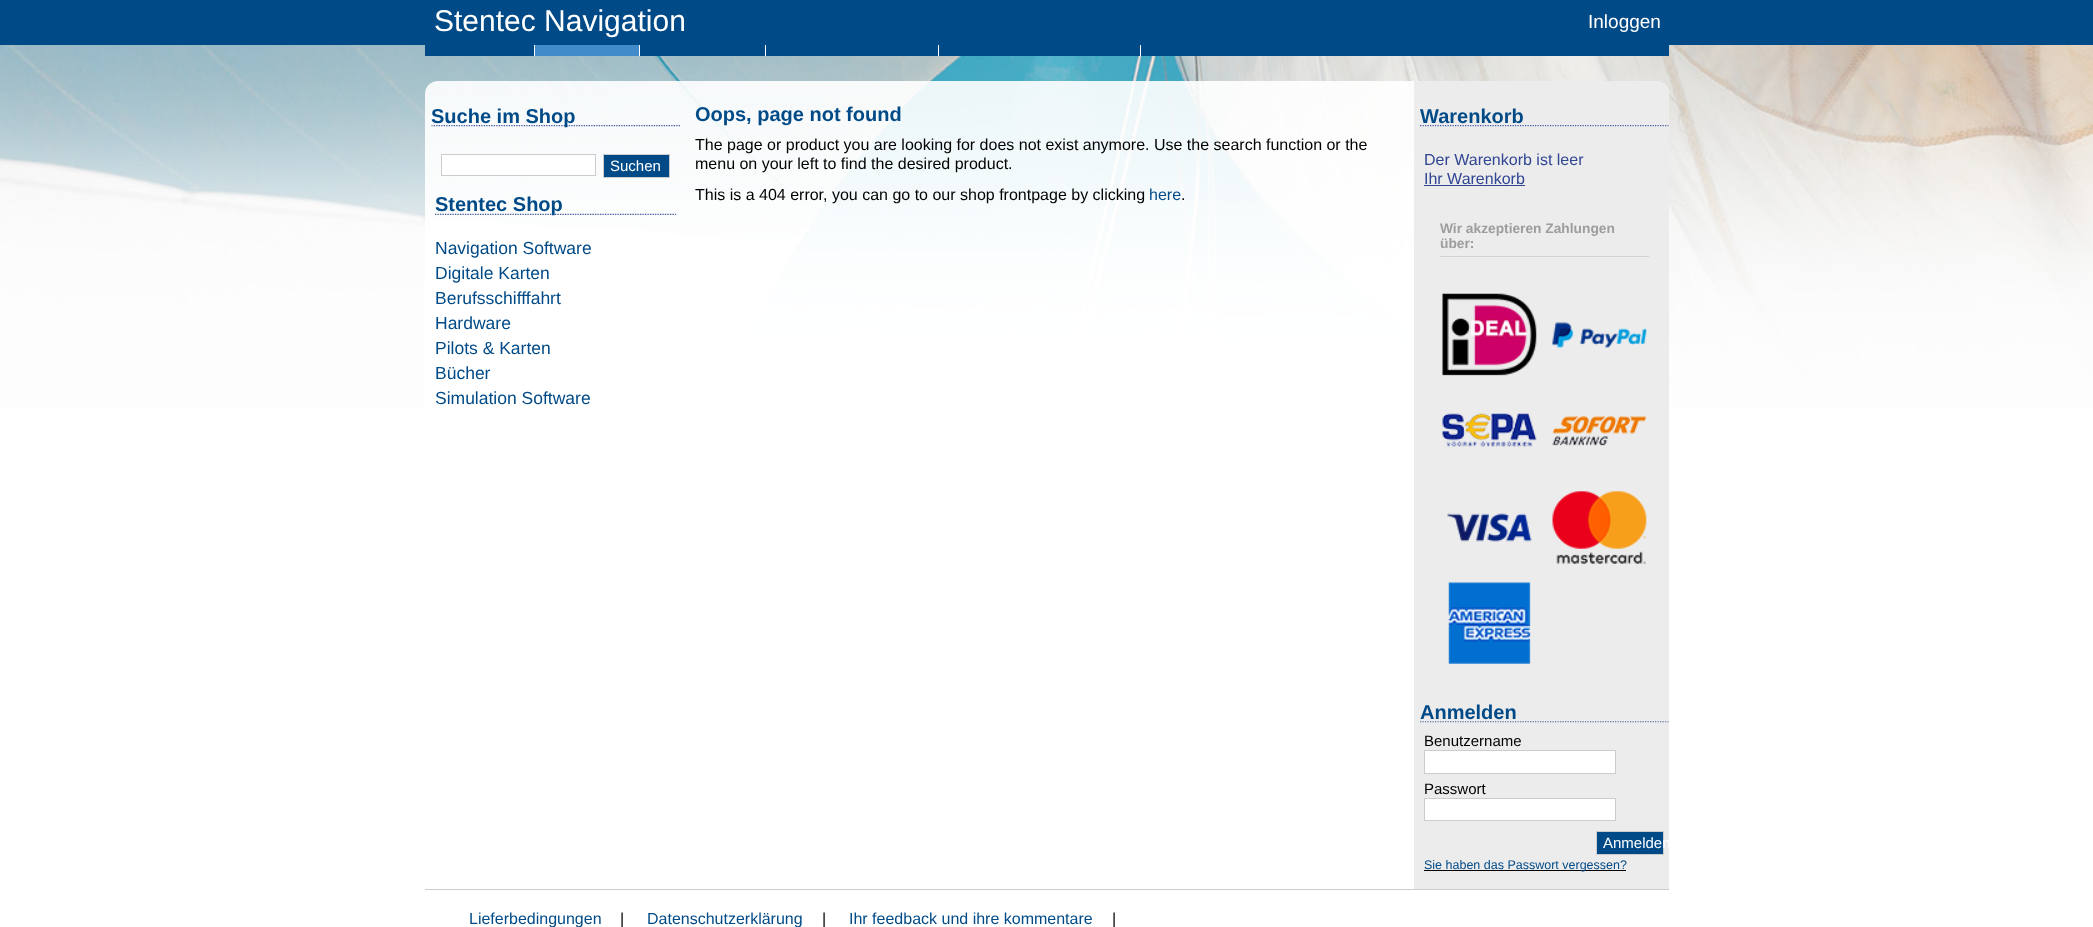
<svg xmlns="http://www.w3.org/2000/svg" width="2093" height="927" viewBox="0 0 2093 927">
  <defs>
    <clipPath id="clip1"><rect x="1420" y="723" width="249" height="153"/></clipPath>
  </defs>
  <rect width="100%" height="100%" fill="#ffffff"/>
  <image x="0" y="45" width="2093" height="363" href="img1.png"/>
  <rect x="0" y="0" width="2093" height="45" fill="#004a87"/>
  <text x="434" y="31" font-family="Liberation Sans" font-size="30" fill="#ffffff">Stentec Navigation</text>
  <text x="1588" y="28" font-family="Liberation Sans" font-size="19" fill="#ffffff">Inloggen</text>
  <rect x="425" y="45" width="1244" height="11" fill="#004a87"/>
  <rect x="534" y="45" width="1" height="11" fill="#ffffff"/>
  <rect x="535" y="45" width="104" height="11" fill="#428bca"/>
  <rect x="639" y="45" width="1" height="11" fill="#ffffff"/>
  <rect x="765" y="45" width="1" height="11" fill="#ffffff"/>
  <rect x="938" y="45" width="1" height="11" fill="#ffffff"/>
  <rect x="1140" y="45" width="1" height="11" fill="#ffffff"/>
  <rect x="425" y="81" width="1244" height="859" rx="13" fill="#ffffff" fill-opacity="0.9"/>
  <image x="431" y="125" width="249" height="2" href="img2.png"/>
  <text x="431" y="123" font-family="Liberation Sans" font-size="20" font-weight="bold" fill="#004a87">Suche im Shop</text>
  <rect x="441.5" y="154.5" width="154" height="21" fill="#ffffff" stroke="#cccccc"/>
  <rect x="603.5" y="154.5" width="66" height="23" fill="#004a87" stroke="#cccccc"/>
  <text x="610" y="171" font-family="Liberation Sans" font-size="15" fill="#ffffff">Suchen</text>
  <image x="435" y="213" width="242" height="2" href="img3.png"/>
  <text x="435" y="211" font-family="Liberation Sans" font-size="20" font-weight="bold" fill="#004a87">Stentec Shop</text>
  <text x="435" y="254" font-family="Liberation Sans" font-size="17.5" fill="#004a87">Navigation Software</text>
  <text x="435" y="279" font-family="Liberation Sans" font-size="17.5" fill="#004a87">Digitale Karten</text>
  <text x="435" y="304" font-family="Liberation Sans" font-size="17.5" fill="#004a87">Berufsschifffahrt</text>
  <text x="435" y="329" font-family="Liberation Sans" font-size="17.5" fill="#004a87">Hardware</text>
  <text x="435" y="354" font-family="Liberation Sans" font-size="17.5" fill="#004a87">Pilots &amp; Karten</text>
  <text x="435" y="379" font-family="Liberation Sans" font-size="17.5" fill="#004a87">Bücher</text>
  <text x="435" y="404" font-family="Liberation Sans" font-size="17.5" fill="#004a87">Simulation Software</text>
  <text x="695" y="121" font-family="Liberation Sans" font-size="20" font-weight="bold" fill="#004a87">Oops, page not found</text>
  <text x="695" y="150" font-family="Liberation Sans" font-size="16" fill="#000000">The page or product you are looking for does not exist anymore. Use the search function or the</text>
  <text x="695" y="169" font-family="Liberation Sans" font-size="16" fill="#000000">menu on your left to find the desired product.</text>
  <text x="695" y="200" font-family="Liberation Sans" font-size="16" fill="#000000">This is a 404 error, you can go to our shop frontpage by clicking</text>
  <text x="1149" y="200" font-family="Liberation Sans" font-size="16" fill="#004a87">here</text>
  <text x="1181" y="200" font-family="Liberation Sans" font-size="16" fill="#000000">.</text>
  <path d="M1414 81H1656C1663 81 1669 87 1669 94V889H1414Z" fill="#ececec"/>
  <image x="1420" y="125" width="249" height="2" href="img4.png"/>
  <text x="1420" y="123" font-family="Liberation Sans" font-size="20" font-weight="bold" fill="#004a87">Warenkorb</text>
  <text x="1424" y="165" font-family="Liberation Sans" font-size="16" fill="#304692">Der Warenkorb ist leer</text>
  <text x="1424" y="184" font-family="Liberation Sans" font-size="16" fill="#304692">Ihr Warenkorb</text>
  <rect x="1424" y="185" width="101" height="1" fill="#304692"/>
  <rect x="1440" y="256" width="209" height="1" fill="#d4d2cc"/>
  <text x="1440" y="233" font-family="Liberation Sans" font-size="13.75" font-weight="bold" fill="#9c9e9c">Wir akzeptieren Zahlungen</text>
  <text x="1440" y="248" font-family="Liberation Sans" font-size="13.75" font-weight="bold" fill="#9c9e9c">über:</text>
  <image x="1442" y="293" width="95" height="83" href="img5.png"/>
  <image x="1552" y="322" width="95" height="26" href="img6.png"/>
  <image x="1442" y="413" width="95" height="34" href="img7.png"/>
  <image x="1552" y="416" width="95" height="30" href="img8.png"/>
  <image x="1447" y="513" width="85" height="29" href="img9.png"/>
  <image x="1552" y="491" width="95" height="73" href="img10.png"/>
  <image x="1448" y="582" width="83" height="82" href="img11.png"/>
  <image x="1420" y="721" width="249" height="2" href="img12.png"/>
  <text x="1420" y="719" font-family="Liberation Sans" font-size="20" font-weight="bold" fill="#004a87">Anmelden</text>
  <text x="1424" y="746" font-family="Liberation Sans" font-size="15" fill="#000000">Benutzername</text>
  <rect x="1424.5" y="750.5" width="191" height="23" fill="#ffffff" stroke="#cccccc"/>
  <text x="1424" y="794" font-family="Liberation Sans" font-size="15" fill="#000000">Passwort</text>
  <rect x="1424.5" y="798.5" width="191" height="22" fill="#ffffff" stroke="#cccccc"/>
  <rect x="1596.5" y="831.5" width="67" height="23" fill="#004a87" stroke="#cccccc"/>
  <g clip-path="url(#clip1)">
    <text x="1603" y="848" font-family="Liberation Sans" font-size="15" fill="#ffffff">Anmelden</text>
  </g>
  <rect x="1424" y="870" width="202" height="1" fill="#000000"/>
  <text x="1424" y="869" font-family="Liberation Sans" font-size="12.5" fill="#004a87">Sie haben das Passwort vergessen?</text>
  <rect x="425" y="889" width="1244" height="1" fill="#cccccc"/>
  <text x="469" y="924" font-family="Liberation Sans" font-size="16" fill="#004a87">Lieferbedingungen</text>
  <text x="620" y="924" font-family="Liberation Sans" font-size="16" fill="#000000">|</text>
  <text x="647" y="924" font-family="Liberation Sans" font-size="16" fill="#004a87">Datenschutzerklärung</text>
  <text x="822" y="924" font-family="Liberation Sans" font-size="16" fill="#000000">|</text>
  <text x="849" y="924" font-family="Liberation Sans" font-size="16" fill="#004a87">Ihr feedback und ihre kommentare</text>
  <text x="1112" y="924" font-family="Liberation Sans" font-size="16" fill="#000000">|</text>
</svg>
